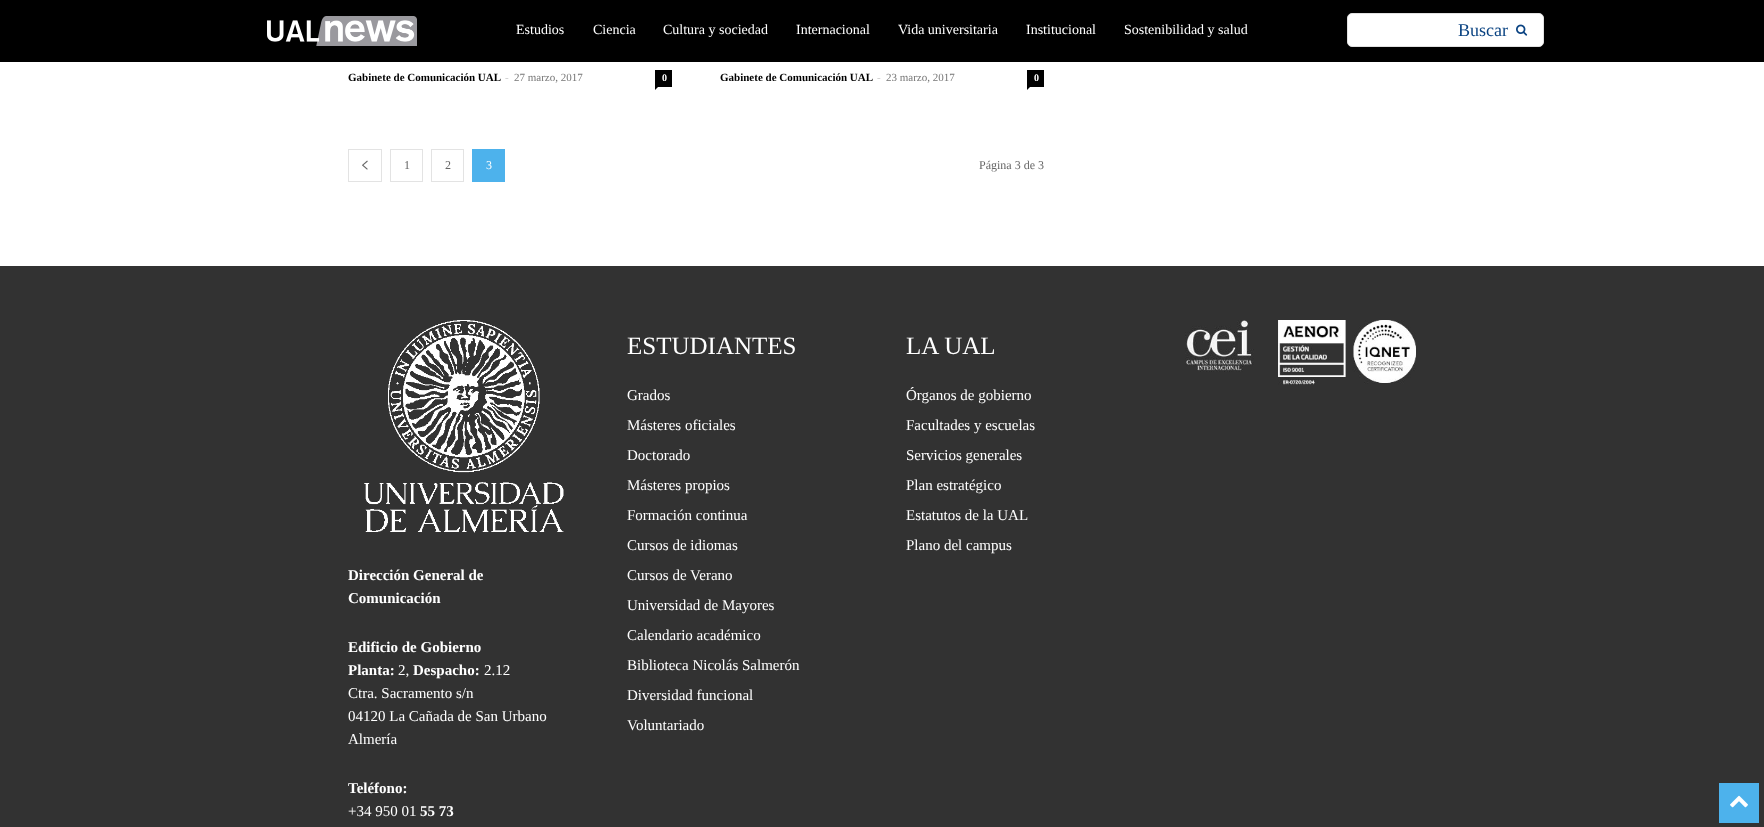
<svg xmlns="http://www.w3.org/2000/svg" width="1764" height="827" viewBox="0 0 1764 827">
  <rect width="100%" height="100%" fill="#ffffff"/>
  <rect x="0" y="0" width="1764" height="62" fill="#000000"/>
  <image x="267" y="16" width="150" height="30" href="img1.png"/>
  <text x="516" y="34" font-family="Liberation Serif" font-size="14" fill="#ffffff">Estudios</text>
  <text x="593" y="34" font-family="Liberation Serif" font-size="14" fill="#ffffff">Ciencia</text>
  <text x="663" y="34" font-family="Liberation Serif" font-size="14" fill="#ffffff">Cultura y sociedad</text>
  <text x="796" y="34" font-family="Liberation Serif" font-size="14" fill="#ffffff">Internacional</text>
  <text x="898" y="34" font-family="Liberation Serif" font-size="14" fill="#ffffff">Vida universitaria</text>
  <text x="1026" y="34" font-family="Liberation Serif" font-size="14" fill="#ffffff">Institucional</text>
  <text x="1124" y="34" font-family="Liberation Serif" font-size="14" fill="#ffffff">Sostenibilidad y salud</text>
  <rect x="1347.5" y="13.5" width="196" height="33" rx="4.5" fill="#ffffff" stroke="#e1e1e1"/>
  <rect x="1443" y="14" width="100" height="32" rx="5" fill="#ffffff"/>
  <text x="1458" y="36" font-family="Liberation Serif" font-size="18" fill="#0a4382">Buscar</text>
  <image x="1516" y="24" width="12" height="12" href="img2.png"/>
  <text x="348" y="81" font-family="Liberation Serif" font-size="11" font-weight="bold" fill="#000000">Gabinete de Comunicación UAL</text>
  <text x="505" y="81" font-family="Liberation Serif" font-size="11" fill="#cccccc">-</text>
  <text x="514" y="81" font-family="Liberation Serif" font-size="11" fill="#767676">27 marzo, 2017</text>
  <rect x="655" y="70" width="17" height="17" fill="#000000"/>
  <text x="662" y="81" font-family="Liberation Serif" font-size="10" font-weight="bold" fill="#ffffff">0</text>
  <path d="M655 87H658L655 90Z" fill="#000000"/>
  <text x="720" y="81" font-family="Liberation Serif" font-size="11" font-weight="bold" fill="#000000">Gabinete de Comunicación UAL</text>
  <text x="877" y="81" font-family="Liberation Serif" font-size="11" fill="#cccccc">-</text>
  <text x="886" y="81" font-family="Liberation Serif" font-size="11" fill="#767676">23 marzo, 2017</text>
  <rect x="1027" y="70" width="17" height="17" fill="#000000"/>
  <text x="1034" y="81" font-family="Liberation Serif" font-size="10" font-weight="bold" fill="#ffffff">0</text>
  <path d="M1027 87H1030L1027 90Z" fill="#000000"/>
  <rect x="348.5" y="149.5" width="33" height="32" fill="none" stroke="#e3e3e3"/>
  <image x="362" y="160" width="6" height="10" href="img3.png"/>
  <rect x="390.5" y="149.5" width="32" height="32" fill="none" stroke="#e3e3e3"/>
  <text x="404" y="169" font-family="Liberation Serif" font-size="12" fill="#666666">1</text>
  <rect x="431.5" y="149.5" width="32" height="32" fill="none" stroke="#e3e3e3"/>
  <text x="445" y="169" font-family="Liberation Serif" font-size="12" fill="#666666">2</text>
  <rect x="472" y="149" width="33" height="33" fill="#4db2ec"/>
  <text x="486" y="169" font-family="Liberation Serif" font-size="12" fill="#ffffff">3</text>
  <text x="979" y="169" font-family="Liberation Serif" font-size="12" fill="#666666">Página 3 de 3</text>
  <rect x="0" y="266" width="1764" height="561" fill="#323232"/>
  <text x="627" y="354" font-family="Liberation Serif" font-size="25" fill="#ffffff">ESTUDIANTES</text>
  <text x="627" y="400" font-family="Liberation Serif" font-size="15" fill="#ffffff">Grados</text>
  <text x="627" y="430" font-family="Liberation Serif" font-size="15" fill="#ffffff">Másteres oficiales</text>
  <text x="627" y="460" font-family="Liberation Serif" font-size="15" fill="#ffffff">Doctorado</text>
  <text x="627" y="490" font-family="Liberation Serif" font-size="15" fill="#ffffff">Másteres propios</text>
  <text x="627" y="520" font-family="Liberation Serif" font-size="15" fill="#ffffff">Formación continua</text>
  <text x="627" y="550" font-family="Liberation Serif" font-size="15" fill="#ffffff">Cursos de idiomas</text>
  <text x="627" y="580" font-family="Liberation Serif" font-size="15" fill="#ffffff">Cursos de Verano</text>
  <text x="627" y="610" font-family="Liberation Serif" font-size="15" fill="#ffffff">Universidad de Mayores</text>
  <text x="627" y="640" font-family="Liberation Serif" font-size="15" fill="#ffffff">Calendario académico</text>
  <text x="627" y="670" font-family="Liberation Serif" font-size="15" fill="#ffffff">Biblioteca Nicolás Salmerón</text>
  <text x="627" y="700" font-family="Liberation Serif" font-size="15" fill="#ffffff">Diversidad funcional</text>
  <text x="627" y="730" font-family="Liberation Serif" font-size="15" fill="#ffffff">Voluntariado</text>
  <text x="906" y="354" font-family="Liberation Serif" font-size="25" fill="#ffffff">LA UAL</text>
  <text x="906" y="400" font-family="Liberation Serif" font-size="15" fill="#ffffff">Órganos de gobierno</text>
  <text x="906" y="430" font-family="Liberation Serif" font-size="15" fill="#ffffff">Facultades y escuelas</text>
  <text x="906" y="460" font-family="Liberation Serif" font-size="15" fill="#ffffff">Servicios generales</text>
  <text x="906" y="490" font-family="Liberation Serif" font-size="15" fill="#ffffff">Plan estratégico</text>
  <text x="906" y="520" font-family="Liberation Serif" font-size="15" fill="#ffffff">Estatutos de la UAL</text>
  <text x="906" y="550" font-family="Liberation Serif" font-size="15" fill="#ffffff">Plano del campus</text>
  <image x="1185" y="320" width="69" height="52" href="img4.png"/>
  <image x="1278" y="320" width="138" height="65" href="img5.png"/>
  <image x="364" y="320" width="200" height="213" href="img6.png"/>
  <text x="348" y="580" font-family="Liberation Serif" font-size="15" font-weight="bold" fill="#ffffff">Dirección General de</text>
  <text x="348" y="603" font-family="Liberation Serif" font-size="15" font-weight="bold" fill="#ffffff">Comunicación</text>
  <text x="348" y="652" font-family="Liberation Serif" font-size="15" font-weight="bold" fill="#ffffff">Edificio de Gobierno</text>
  <text x="348" y="675" font-family="Liberation Serif" font-size="15" font-weight="bold" fill="#ffffff">Planta:</text>
  <text x="398" y="675" font-family="Liberation Serif" font-size="15" fill="#ffffff">2,</text>
  <text x="413" y="675" font-family="Liberation Serif" font-size="15" font-weight="bold" fill="#ffffff">Despacho:</text>
  <text x="484" y="675" font-family="Liberation Serif" font-size="15" fill="#ffffff">2.12</text>
  <text x="348" y="698" font-family="Liberation Serif" font-size="15" fill="#ffffff">Ctra. Sacramento s/n</text>
  <text x="348" y="721" font-family="Liberation Serif" font-size="15" fill="#ffffff">04120 La Cañada de San Urbano</text>
  <text x="348" y="744" font-family="Liberation Serif" font-size="15" fill="#ffffff">Almería</text>
  <text x="348" y="793" font-family="Liberation Serif" font-size="15" font-weight="bold" fill="#ffffff">Teléfono:</text>
  <text x="348" y="816" font-family="Liberation Serif" font-size="15" fill="#ffffff">+34 950 01</text>
  <text x="420" y="816" font-family="Liberation Serif" font-size="15" font-weight="bold" fill="#ffffff">55 73</text>
  <rect x="1719" y="783" width="40" height="40" fill="#4db2ec"/>
  <image x="1730" y="795" width="18" height="13" href="img7.png"/>
</svg>
